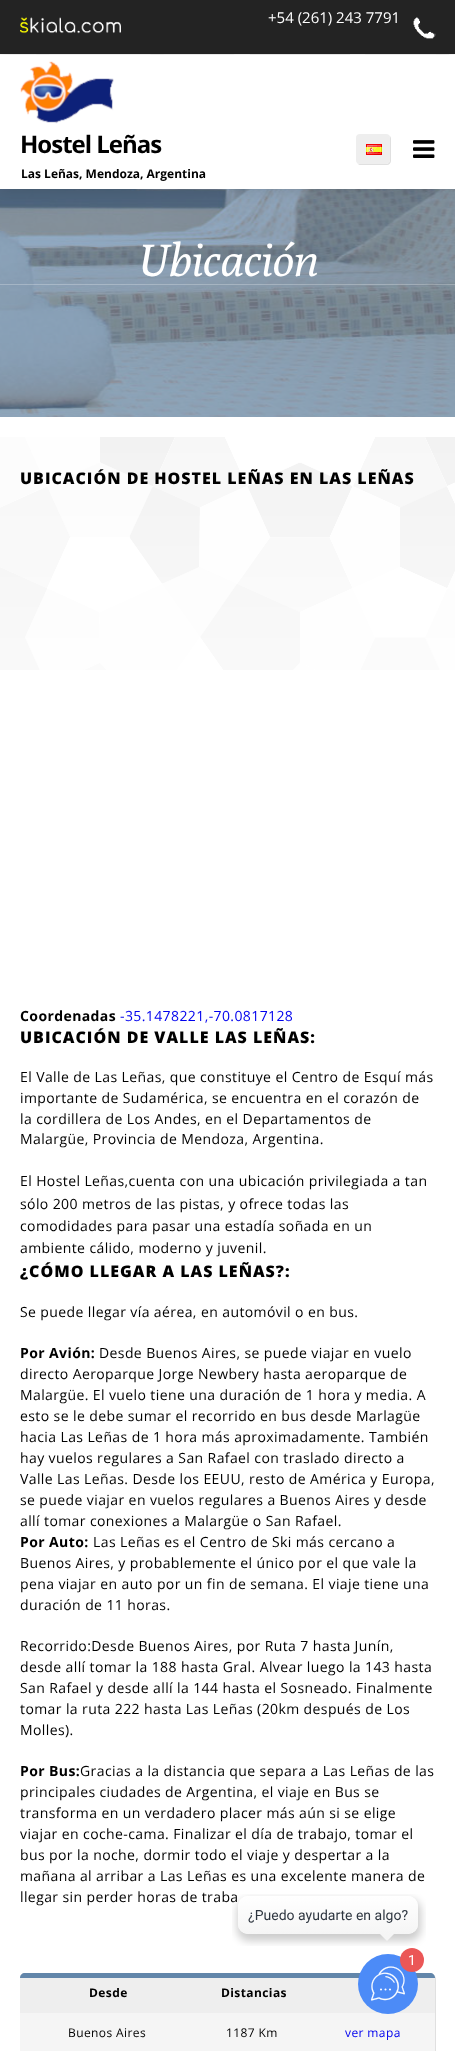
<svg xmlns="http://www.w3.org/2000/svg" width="455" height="2051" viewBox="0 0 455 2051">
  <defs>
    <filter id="blur1" x="-50%" y="-200%" width="200%" height="500%"><feGaussianBlur stdDeviation="7.5"/></filter>
    <filter id="blur2" x="-50%" y="-200%" width="200%" height="500%"><feGaussianBlur stdDeviation="0.5"/></filter>
  </defs>
  <rect width="100%" height="100%" fill="#ffffff"/>
  <image x="0" y="54" width="455" height="1" href="img1.png"/>
  <image x="0" y="189" width="455" height="228" href="img7.png"/>
  <rect x="0" y="55" width="455" height="134" fill="#000000" fill-opacity="0.15" filter="url(#blur1)"/>
  <rect x="0" y="55" width="455" height="134" fill="#000000" fill-opacity="0.2" filter="url(#blur2)"/>
  <rect x="0" y="0" width="455" height="54" fill="#232323"/>
  <image x="20" y="17" width="101" height="17" href="img2.png"/>
  <text x="268" y="23" font-family="Open Sans" font-size="15" fill="#ffffff">+54 (261) 243 7791</text>
  <image x="413" y="17" width="23" height="22" href="img3.png"/>
  <rect x="0" y="55" width="455" height="134" fill="#ffffff"/>
  <image x="20" y="61" width="94" height="63" href="img4.png"/>
  <text x="20" y="153" font-family="Open Sans" font-size="24" font-weight="bold" letter-spacing="-1" fill="#000000">Hostel Leñas</text>
  <text x="21" y="178" font-family="Open Sans" font-size="12" font-weight="bold" fill="#000000">Las Leñas, Mendoza, Argentina</text>
  <path d="M357.5 163.5C358.5 164.5 359.5 165 361 165H387C389 165 391 163 391 161V139C391 137.5 390.5 136.5 389.5 135.5C389.5 136.5 390 137 390 138V160C390 162 388 164 386 164H360C359 164 358.5 163.5 357.5 163.5Z" fill="#e0e0e0"/>
  <rect x="356" y="134" width="34" height="30" rx="4" fill="#eeeeee"/>
  <image x="366" y="144" width="16" height="11" href="img5.png"/>
  <image x="413" y="140" width="22" height="18" href="img6.png"/>
  <text x="137" y="276" font-family="Poly" font-size="45" font-style="italic" fill="#ffffff">Ubicación</text>
  <rect x="0" y="284" width="455" height="1" fill="#ffffff" fill-opacity="0.25"/>
  <image x="0" y="437" width="455" height="233" href="img8.png"/>
  <text x="20" y="484" font-family="Open Sans" font-size="16" font-weight="800" letter-spacing="1" fill="#000000">UBICACIÓN DE HOSTEL LEÑAS EN LAS LEÑAS</text>
  <text x="20" y="1021" font-family="Open Sans" font-size="14" font-weight="bold" letter-spacing="0.4" fill="#000000">Coordenadas</text>
  <text x="120" y="1021" font-family="Open Sans" font-size="14" letter-spacing="0.4" fill="#0000ee">-35.1478221,-70.0817128</text>
  <text x="20" y="1043" font-family="Open Sans" font-size="16" font-weight="800" letter-spacing="1" fill="#000000">UBICACIÓN DE VALLE LAS LEÑAS:</text>
  <text x="20" y="1082" font-family="Open Sans" font-size="14" letter-spacing="0.4" fill="#000000">El Valle de Las Leñas, que constituye el Centro de Esquí más</text>
  <text x="20" y="1103" font-family="Open Sans" font-size="14" letter-spacing="0.4" fill="#000000">importante de Sudamérica, se encuentra en el corazón de</text>
  <text x="20" y="1124" font-family="Open Sans" font-size="14" letter-spacing="0.4" fill="#000000">la cordillera de Los Andes, en el Departamentos de</text>
  <text x="20" y="1144" font-family="Open Sans" font-size="14" letter-spacing="0.4" fill="#000000">Malargüe, Provincia de Mendoza, Argentina.</text>
  <text x="20" y="1186" font-family="Open Sans" font-size="14" letter-spacing="0.4" fill="#000000">El Hostel Leñas,cuenta con una ubicación privilegiada a tan</text>
  <text x="20" y="1209" font-family="Open Sans" font-size="14" letter-spacing="0.4" fill="#000000">sólo 200 metros de las pistas, y ofrece todas las</text>
  <text x="20" y="1231" font-family="Open Sans" font-size="14" letter-spacing="0.4" fill="#000000">comodidades para pasar una estadía soñada en un</text>
  <text x="20" y="1253" font-family="Open Sans" font-size="14" letter-spacing="0.4" fill="#000000">ambiente cálido, moderno y juvenil.</text>
  <text x="20" y="1277" font-family="Open Sans" font-size="16" font-weight="800" letter-spacing="1" fill="#000000">¿CÓMO LLEGAR A LAS LEÑAS?:</text>
  <text x="20" y="1317" font-family="Open Sans" font-size="14" letter-spacing="0.4" fill="#000000">Se puede llegar vía aérea, en automóvil o en bus.</text>
  <text x="20" y="1358" font-family="Open Sans" font-size="14" font-weight="bold" letter-spacing="0.4" fill="#000000">Por Avión:</text>
  <text x="99" y="1358" font-family="Open Sans" font-size="14" letter-spacing="0.4" fill="#000000">Desde Buenos Aires, se puede viajar en vuelo</text>
  <text x="20" y="1379" font-family="Open Sans" font-size="14" letter-spacing="0.4" fill="#000000">directo Aeroparque Jorge Newbery hasta aeroparque de</text>
  <text x="20" y="1400" font-family="Open Sans" font-size="14" letter-spacing="0.4" fill="#000000">Malargüe. El vuelo tiene una duración de 1 hora y media. A</text>
  <text x="20" y="1421" font-family="Open Sans" font-size="14" letter-spacing="0.4" fill="#000000">esto se le debe sumar el recorrido en bus desde Marlagüe</text>
  <text x="20" y="1442" font-family="Open Sans" font-size="14" letter-spacing="0.4" fill="#000000">hacia Las Leñas de 1 hora más aproximadamente. También</text>
  <text x="20" y="1463" font-family="Open Sans" font-size="14" letter-spacing="0.4" fill="#000000">hay vuelos regulares a San Rafael con traslado directo a</text>
  <text x="20" y="1484" font-family="Open Sans" font-size="14" letter-spacing="0.4" fill="#000000">Valle Las Leñas. Desde los EEUU, resto de América y Europa,</text>
  <text x="20" y="1505" font-family="Open Sans" font-size="14" letter-spacing="0.4" fill="#000000">se puede viajar en vuelos regulares a Buenos Aires y desde</text>
  <text x="20" y="1526" font-family="Open Sans" font-size="14" letter-spacing="0.4" fill="#000000">allí tomar conexiones a Malargüe o San Rafael.</text>
  <text x="20" y="1547" font-family="Open Sans" font-size="14" font-weight="bold" letter-spacing="0.4" fill="#000000">Por Auto:</text>
  <text x="93" y="1547" font-family="Open Sans" font-size="14" letter-spacing="0.4" fill="#000000">Las Leñas es el Centro de Ski más cercano a</text>
  <text x="20" y="1568" font-family="Open Sans" font-size="14" letter-spacing="0.4" fill="#000000">Buenos Aires, y probablemente el único por el que vale la</text>
  <text x="20" y="1589" font-family="Open Sans" font-size="14" letter-spacing="0.4" fill="#000000">pena viajar en auto por un fin de semana. El viaje tiene una</text>
  <text x="20" y="1610" font-family="Open Sans" font-size="14" letter-spacing="0.4" fill="#000000">duración de 11 horas.</text>
  <text x="20" y="1651" font-family="Open Sans" font-size="14" letter-spacing="0.4" fill="#000000">Recorrido:Desde Buenos Aires, por Ruta 7 hasta Junín,</text>
  <text x="20" y="1672" font-family="Open Sans" font-size="14" letter-spacing="0.4" fill="#000000">desde allí tomar la 188 hasta Gral. Alvear luego la 143 hasta</text>
  <text x="20" y="1693" font-family="Open Sans" font-size="14" letter-spacing="0.4" fill="#000000">San Rafael y desde allí la 144 hasta el Sosneado. Finalmente</text>
  <text x="20" y="1714" font-family="Open Sans" font-size="14" letter-spacing="0.4" fill="#000000">tomar la ruta 222 hasta Las Leñas (20km después de Los</text>
  <text x="20" y="1735" font-family="Open Sans" font-size="14" letter-spacing="0.4" fill="#000000">Molles).</text>
  <text x="20" y="1776" font-family="Open Sans" font-size="14" font-weight="bold" letter-spacing="0.4" fill="#000000">Por Bus:</text>
  <text x="80" y="1776" font-family="Open Sans" font-size="14" letter-spacing="0.4" fill="#000000">Gracias a la distancia que separa a Las Leñas de las</text>
  <text x="20" y="1797" font-family="Open Sans" font-size="14" letter-spacing="0.4" fill="#000000">principales ciudades de Argentina, el viaje en Bus se</text>
  <text x="20" y="1818" font-family="Open Sans" font-size="14" letter-spacing="0.4" fill="#000000">transforma en un verdadero placer más aún si se elige</text>
  <text x="20" y="1839" font-family="Open Sans" font-size="14" letter-spacing="0.4" fill="#000000">viajar en coche-cama. Finalizar el día de trabajo, tomar el</text>
  <text x="20" y="1860" font-family="Open Sans" font-size="14" letter-spacing="0.4" fill="#000000">bus por la noche, dormir todo el viaje y despertar a la</text>
  <text x="20" y="1881" font-family="Open Sans" font-size="14" letter-spacing="0.4" fill="#000000">mañana al arribar a Las Leñas es una excelente manera de</text>
  <text x="20" y="1902" font-family="Open Sans" font-size="14" letter-spacing="0.4" fill="#000000">llegar sin perder horas de traba</text>
  <path d="M22 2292C23 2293 24 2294 26 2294H431C434 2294 436 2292 436 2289V1979C436 1977 435 1976 434 1975C435 1976 435 1977 435 1978V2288C435 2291 433 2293 430 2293H25C24 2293 23 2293 22 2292Z" fill="#e0e0e0"/>
  <rect x="20" y="1973" width="415" height="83" rx="5" fill="#f5f5f5"/>
  <path d="M25 1973H194V2013H20V1978C20 1975 22 1973 25 1973Z" fill="#eeeeee"/>
  <path d="M311 1973H430C433 1973 435 1975 435 1978V2013H311Z" fill="#eeeeee"/>
  <path d="M25 1973H430C433 1973 435 1975 435 1978H20C20 1975 22 1973 25 1973Z" fill="#6286aa"/>
  <text x="89" y="1997" font-family="Open Sans" font-size="12" font-weight="bold" letter-spacing="0.4" fill="#000000">Desde</text>
  <rect x="194" y="1978" width="117" height="35" fill="#eeeeee"/>
  <text x="221" y="1997" font-family="Open Sans" font-size="12" font-weight="bold" letter-spacing="0.4" fill="#000000">Distancias</text>
  <text x="68" y="2037" font-family="Open Sans" font-size="12" letter-spacing="0.4" fill="#000000">Buenos Aires</text>
  <text x="226" y="2037" font-family="Open Sans" font-size="12" letter-spacing="0.4" fill="#000000">1187 Km</text>
  <text x="345" y="2037" font-family="Open Sans" font-size="12" letter-spacing="0.4" fill="#0000ee">ver mapa</text>
  <image x="232" y="1894" width="194" height="52" href="img9.png"/>
  <circle cx="388" cy="1984" r="30" fill="#4c8bf7"/>
  <image x="370" y="1966" width="35" height="35" href="img10.png"/>
  <circle cx="412" cy="1960" r="12" fill="#eb5757"/>
  <text x="408" y="1965" font-family="Roboto" font-size="14" fill="#ffffff">1</text>
</svg>
